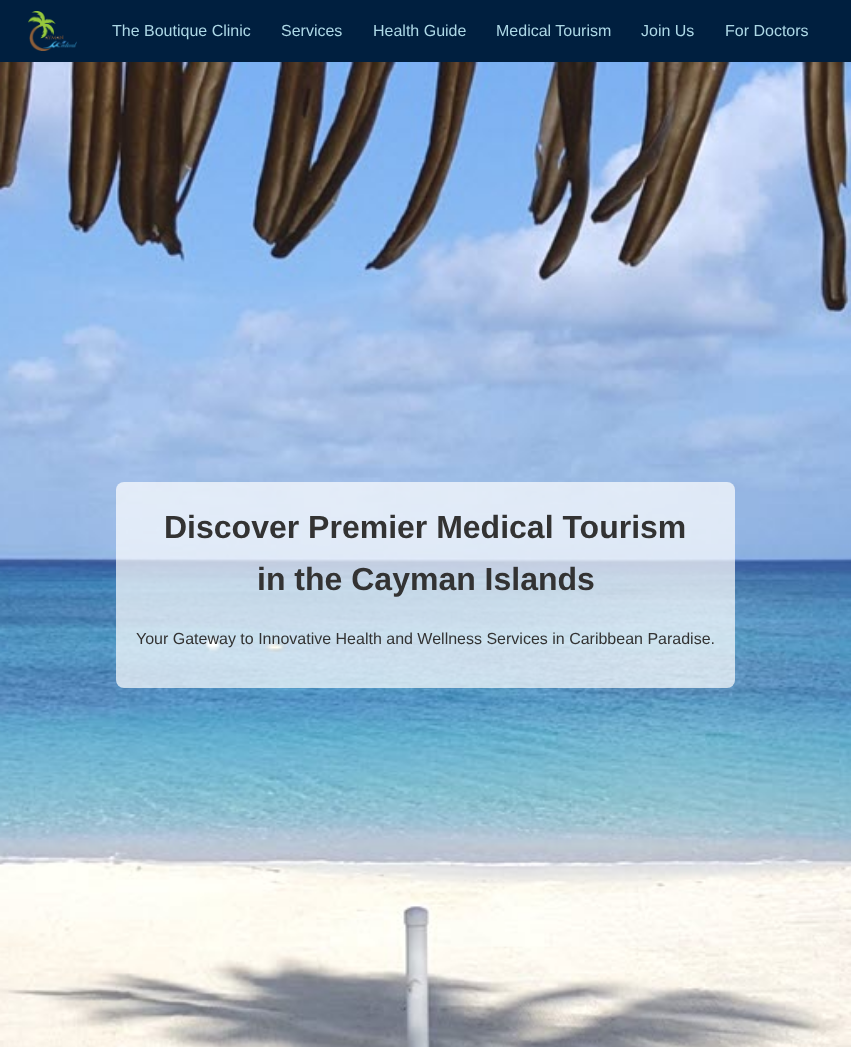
<svg xmlns="http://www.w3.org/2000/svg" width="851" height="1047" viewBox="0 0 851 1047">
  <rect width="100%" height="100%" fill="#ffffff"/>
  <rect x="0" y="0" width="851" height="62" fill="#001f3f"/>
  <image x="28" y="11" width="49" height="40" href="img1.png"/>
  <text x="112" y="36" font-family="Liberation Sans" font-size="16" fill="#add8e6">The Boutique Clinic</text>
  <text x="281" y="36" font-family="Liberation Sans" font-size="16" fill="#add8e6">Services</text>
  <text x="373" y="36" font-family="Liberation Sans" font-size="16" fill="#add8e6">Health Guide</text>
  <text x="496" y="36" font-family="Liberation Sans" font-size="16" fill="#add8e6">Medical Tourism</text>
  <text x="641" y="36" font-family="Liberation Sans" font-size="16" fill="#add8e6">Join Us</text>
  <text x="725" y="36" font-family="Liberation Sans" font-size="16" fill="#add8e6">For Doctors</text>
  <image x="0" y="62" width="851" height="985" href="img2.png"/>
  <rect x="116" y="482" width="619" height="206" rx="8" fill="#ffffff" fill-opacity="0.7"/>
  <text x="164" y="538" font-family="Liberation Sans" font-size="32" font-weight="bold" fill="#333333">Discover Premier Medical Tourism</text>
  <text x="257" y="590" font-family="Liberation Sans" font-size="32" font-weight="bold" fill="#333333">in the Cayman Islands</text>
  <text x="136" y="644" font-family="Liberation Sans" font-size="16" fill="#333333">Your Gateway to Innovative Health and Wellness Services in Caribbean Paradise.</text>
</svg>
